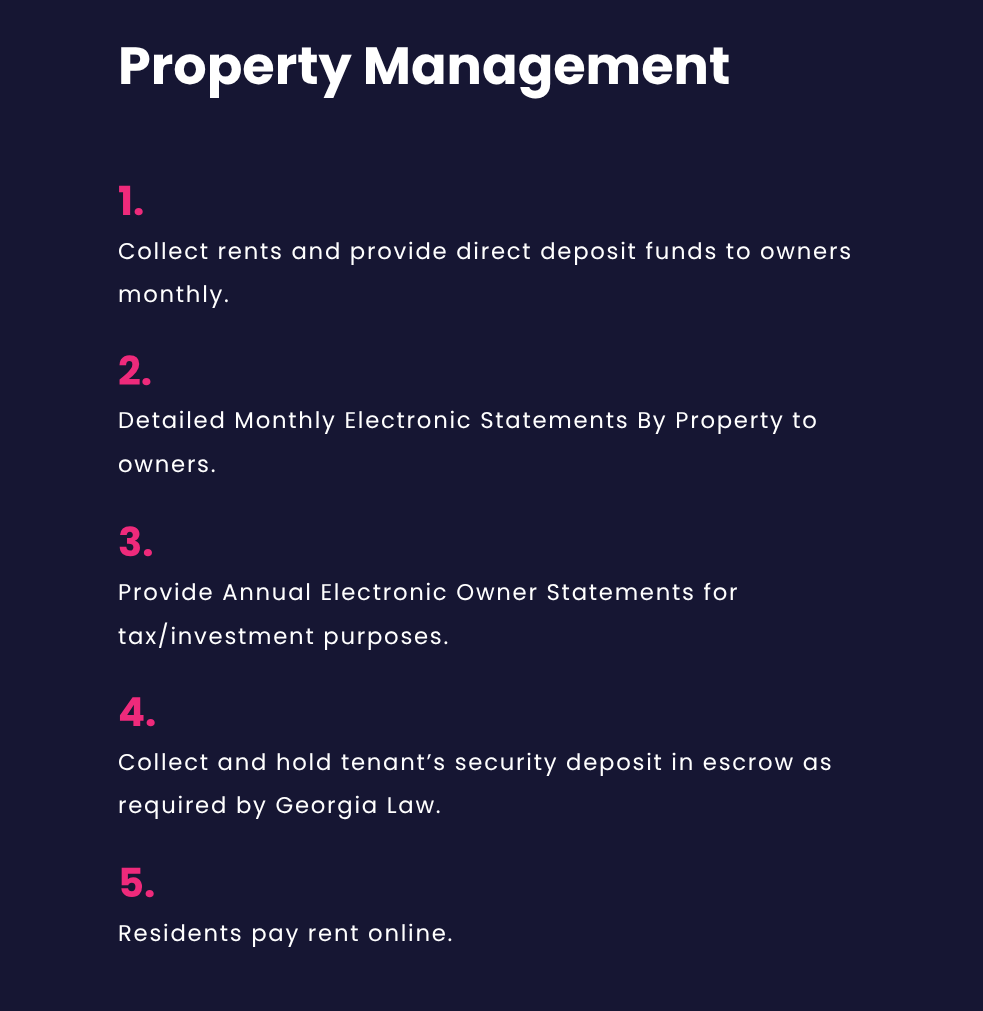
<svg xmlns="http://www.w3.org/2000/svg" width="983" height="1011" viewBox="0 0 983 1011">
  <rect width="100%" height="100%" fill="#161633"/>
  <text x="118" y="84" font-family="Poppins" font-size="52.5" font-weight="bold" fill="#ffffff">Property Management</text>
  <text x="118" y="215" font-family="Poppins" font-size="40" font-weight="bold" fill="#ee2a7b">1.</text>
  <text x="118" y="259" font-family="Poppins" font-size="22.75" letter-spacing="1.75" fill="#ffffff">Collect rents and provide direct deposit funds to owners</text>
  <text x="118" y="302" font-family="Poppins" font-size="22.75" letter-spacing="1.75" fill="#ffffff">monthly.</text>
  <text x="118" y="385" font-family="Poppins" font-size="40" font-weight="bold" fill="#ee2a7b">2.</text>
  <text x="118" y="428" font-family="Poppins" font-size="22.75" letter-spacing="1.75" fill="#ffffff">Detailed Monthly Electronic Statements By Property to</text>
  <text x="118" y="472" font-family="Poppins" font-size="22.75" letter-spacing="1.75" fill="#ffffff">owners.</text>
  <text x="118" y="556" font-family="Poppins" font-size="40" font-weight="bold" fill="#ee2a7b">3.</text>
  <text x="118" y="600" font-family="Poppins" font-size="22.75" letter-spacing="1.75" fill="#ffffff">Provide Annual Electronic Owner Statements for</text>
  <text x="118" y="644" font-family="Poppins" font-size="22.75" letter-spacing="1.75" fill="#ffffff">tax/investment purposes.</text>
  <text x="118" y="726" font-family="Poppins" font-size="40" font-weight="bold" fill="#ee2a7b">4.</text>
  <text x="118" y="770" font-family="Poppins" font-size="22.75" letter-spacing="1.75" fill="#ffffff">Collect and hold tenant’s security deposit in escrow as</text>
  <text x="118" y="813" font-family="Poppins" font-size="22.75" letter-spacing="1.75" fill="#ffffff">required by Georgia Law.</text>
  <text x="118" y="897" font-family="Poppins" font-size="40" font-weight="bold" fill="#ee2a7b">5.</text>
  <text x="118" y="941" font-family="Poppins" font-size="22.75" letter-spacing="1.75" fill="#ffffff">Residents pay rent online.</text>
</svg>
